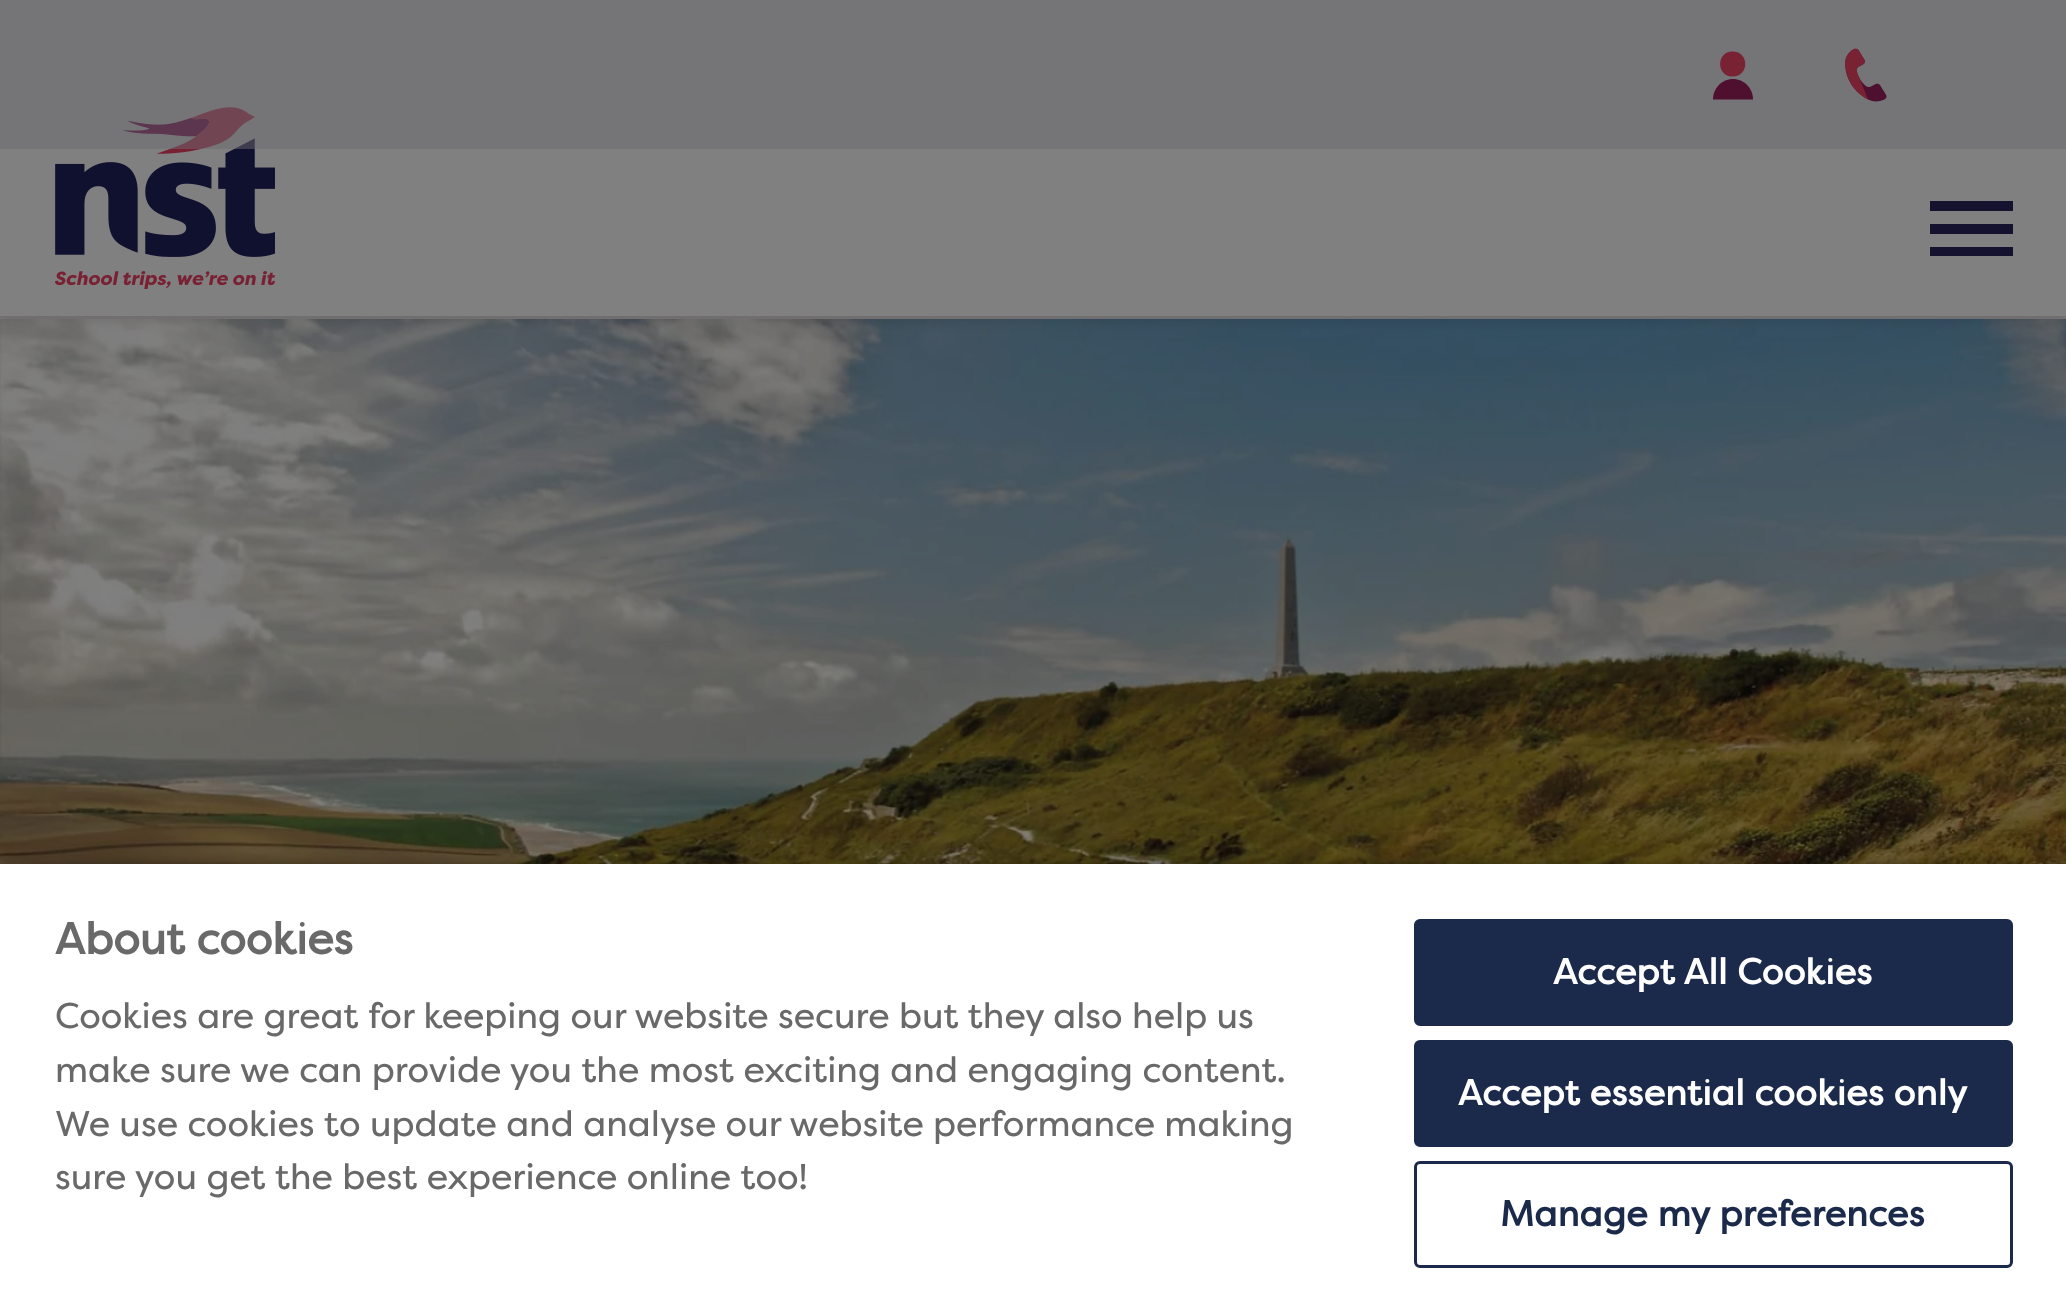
<svg xmlns="http://www.w3.org/2000/svg" width="2066" height="1293" viewBox="0 0 2066 1293">
  <defs>
    <filter id="blur1" x="-50%" y="-200%" width="200%" height="500%"><feGaussianBlur stdDeviation="5.5"/></filter>
  </defs>
  <rect width="100%" height="100%" fill="#7b787a"/>
  <image x="0" y="319" width="2066" height="545" href="img3.png"/>
  <rect x="0" y="6" width="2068" height="316" fill="#000000" fill-opacity="0.1" filter="url(#blur1)"/>
  <rect x="0" y="0" width="2066" height="316" fill="#808080"/>
  <image x="55" y="107" width="220" height="182" href="img2.png"/>
  <rect x="0" y="0" width="2066" height="149" fill="#696a70" fill-opacity="0.5"/>
  <path d="M1732.5 76.5C1749.5 76.5 1749.5 51.5 1732.5 51.5C1716 51.5 1716 76.5 1732.5 76.5Z" fill="#782233"/>
  <path d="M1713 99.5C1713 88 1722 79 1733 79C1744 79 1753 88 1753 99.5" fill="#4f1030"/>
  <image x="1845" y="48" width="42" height="54" href="img1.png"/>
  <path d="M1930 256H2013V247H1930ZM1930 234H2013V224H1930ZM1930 201V211H2013V201Z" fill="#14122f"/>
  <rect x="0" y="864" width="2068" height="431" fill="#000000" fill-opacity="0.35" filter="url(#blur1)"/>
  <rect x="0" y="864" width="2066" height="429" fill="#ffffff"/>
  <text x="55" y="954" font-family="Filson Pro" font-size="44" font-weight="bold" fill="#696969">About cookies</text>
  <text x="55" y="1028" font-family="Filson Pro" font-size="35.75" fill="#696969">Cookies are great for keeping our website secure but they also help us</text>
  <text x="55" y="1082" font-family="Filson Pro" font-size="35.75" fill="#696969">make sure we can provide you the most exciting and engaging content.</text>
  <text x="55" y="1136" font-family="Filson Pro" font-size="35.75" fill="#696969">We use cookies to update and analyse our website performance making</text>
  <text x="55" y="1189" font-family="Filson Pro" font-size="35.75" fill="#696969">sure you get the best experience online too!</text>
  <rect x="1415.5" y="920.5" width="596" height="104" rx="4.5" fill="#1b2a4a" stroke="#1b2a4a" stroke-width="3"/>
  <text x="1553" y="984" font-family="Filson Pro" font-size="35.75" font-weight="bold" letter-spacing="0.35" fill="#ffffff">Accept All Cookies</text>
  <rect x="1415.5" y="1041.5" width="596" height="104" rx="4.5" fill="#1b2a4a" stroke="#1b2a4a" stroke-width="3"/>
  <text x="1458" y="1105" font-family="Filson Pro" font-size="35.75" font-weight="bold" letter-spacing="0.35" fill="#ffffff">Accept essential cookies only</text>
  <rect x="1415.5" y="1162.5" width="596" height="104" rx="4.5" fill="none" stroke="#1b2a4a" stroke-width="3"/>
  <text x="1500" y="1226" font-family="Filson Pro" font-size="35.75" font-weight="bold" letter-spacing="0.35" fill="#1b2a4a">Manage my preferences</text>
</svg>
